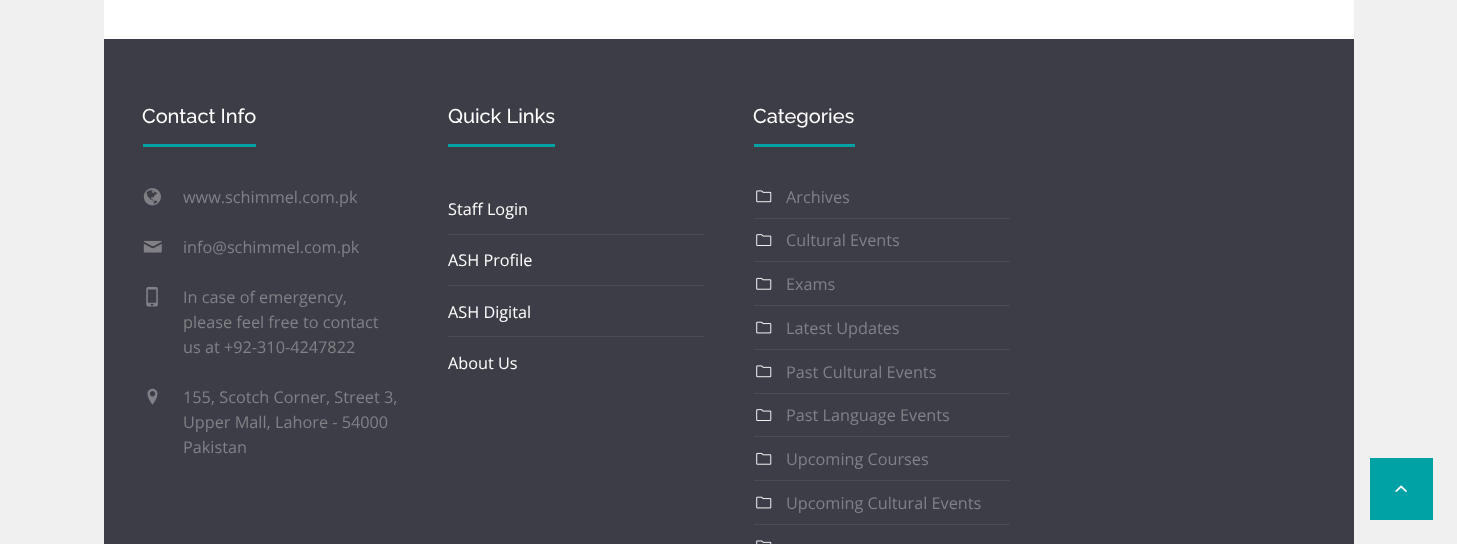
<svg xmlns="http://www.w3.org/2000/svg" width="1457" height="544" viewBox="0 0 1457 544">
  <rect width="100%" height="100%" fill="#f0f0f0"/>
  <rect x="104" y="0" width="1250" height="39" fill="#ffffff"/>
  <rect x="104" y="39" width="1250" height="505" fill="#3d3d47"/>
  <rect x="143" y="144" width="113" height="3" fill="#01a2a6"/>
  <text x="142" y="123" font-family="Raleway" font-size="20" font-weight="500" fill="#ffffff">Contact Info</text>
  <image x="143" y="188" width="18" height="18" href="img1.png"/>
  <text x="183" y="203" font-family="Open Sans" font-size="16.25" fill="#808086">www.schimmel.com.pk</text>
  <image x="143" y="240" width="19" height="13" href="img2.png"/>
  <text x="183" y="253" font-family="Open Sans" font-size="16.25" fill="#808086">info@schimmel.com.pk</text>
  <image x="146" y="286" width="12" height="21" href="img3.png"/>
  <text x="183" y="303" font-family="Open Sans" font-size="16.25" fill="#808086">In case of emergency,</text>
  <text x="183" y="328" font-family="Open Sans" font-size="16.25" fill="#808086">please feel free to contact</text>
  <text x="183" y="353" font-family="Open Sans" font-size="16.25" fill="#808086">us at +92-310-4247822</text>
  <image x="147" y="388" width="11" height="17" href="img4.png"/>
  <text x="183" y="403" font-family="Open Sans" font-size="16.25" fill="#808086">155, Scotch Corner, Street 3,</text>
  <text x="183" y="428" font-family="Open Sans" font-size="16.25" fill="#808086">Upper Mall, Lahore - 54000</text>
  <text x="183" y="453" font-family="Open Sans" font-size="16.25" fill="#808086">Pakistan</text>
  <rect x="448" y="144" width="107" height="3" fill="#01a2a6"/>
  <text x="448" y="123" font-family="Raleway" font-size="20" font-weight="500" fill="#ffffff">Quick Links</text>
  <text x="448" y="215" font-family="Open Sans" font-size="16.25" fill="#ffffff">Staff Login</text>
  <rect x="448" y="234" width="256" height="1" fill="#4b4b54"/>
  <text x="448" y="266" font-family="Open Sans" font-size="16.25" fill="#ffffff">ASH Profile</text>
  <rect x="448" y="285" width="256" height="1" fill="#4b4b54"/>
  <text x="448" y="318" font-family="Open Sans" font-size="16.25" fill="#ffffff">ASH Digital</text>
  <rect x="448" y="336" width="256" height="1" fill="#4b4b54"/>
  <text x="448" y="369" font-family="Open Sans" font-size="16.25" fill="#ffffff">About Us</text>
  <rect x="754" y="144" width="101" height="3" fill="#01a2a6"/>
  <text x="753" y="123" font-family="Raleway" font-size="20" font-weight="500" fill="#ffffff">Categories</text>
  <image x="756" y="190" width="16" height="13" href="img5.png"/>
  <text x="786" y="203" font-family="Open Sans" font-size="16.25" fill="#808086">Archives</text>
  <rect x="754" y="218" width="256" height="1" fill="#4b4b54"/>
  <image x="756" y="234" width="16" height="12" href="img6.png"/>
  <text x="786" y="246" font-family="Open Sans" font-size="16.25" fill="#808086">Cultural Events</text>
  <rect x="754" y="261" width="256" height="1" fill="#4b4b54"/>
  <image x="756" y="277" width="16" height="13" href="img7.png"/>
  <text x="786" y="290" font-family="Open Sans" font-size="16.25" fill="#808086">Exams</text>
  <rect x="754" y="305" width="256" height="1" fill="#4b4b54"/>
  <image x="756" y="321" width="16" height="13" href="img8.png"/>
  <text x="786" y="334" font-family="Open Sans" font-size="16.25" fill="#808086">Latest Updates</text>
  <rect x="754" y="349" width="256" height="1" fill="#4b4b54"/>
  <image x="756" y="365" width="16" height="13" href="img5.png"/>
  <text x="786" y="378" font-family="Open Sans" font-size="16.25" fill="#808086">Past Cultural Events</text>
  <rect x="754" y="393" width="256" height="1" fill="#4b4b54"/>
  <image x="756" y="409" width="16" height="12" href="img6.png"/>
  <text x="786" y="421" font-family="Open Sans" font-size="16.25" fill="#808086">Past Language Events</text>
  <rect x="754" y="436" width="256" height="1" fill="#4b4b54"/>
  <image x="756" y="452" width="16" height="13" href="img7.png"/>
  <text x="786" y="465" font-family="Open Sans" font-size="16.25" fill="#808086">Upcoming Courses</text>
  <rect x="754" y="480" width="256" height="1" fill="#4b4b54"/>
  <image x="756" y="496" width="16" height="13" href="img8.png"/>
  <text x="786" y="509" font-family="Open Sans" font-size="16.25" fill="#808086">Upcoming Cultural Events</text>
  <rect x="754" y="524" width="256" height="1" fill="#4b4b54"/>
  <image x="756" y="540" width="16" height="4" href="img9.png"/>
  <rect x="1370" y="458" width="63" height="62" fill="#01a2a6"/>
  <image x="1395" y="485" width="12" height="7" href="img10.png"/>
</svg>
